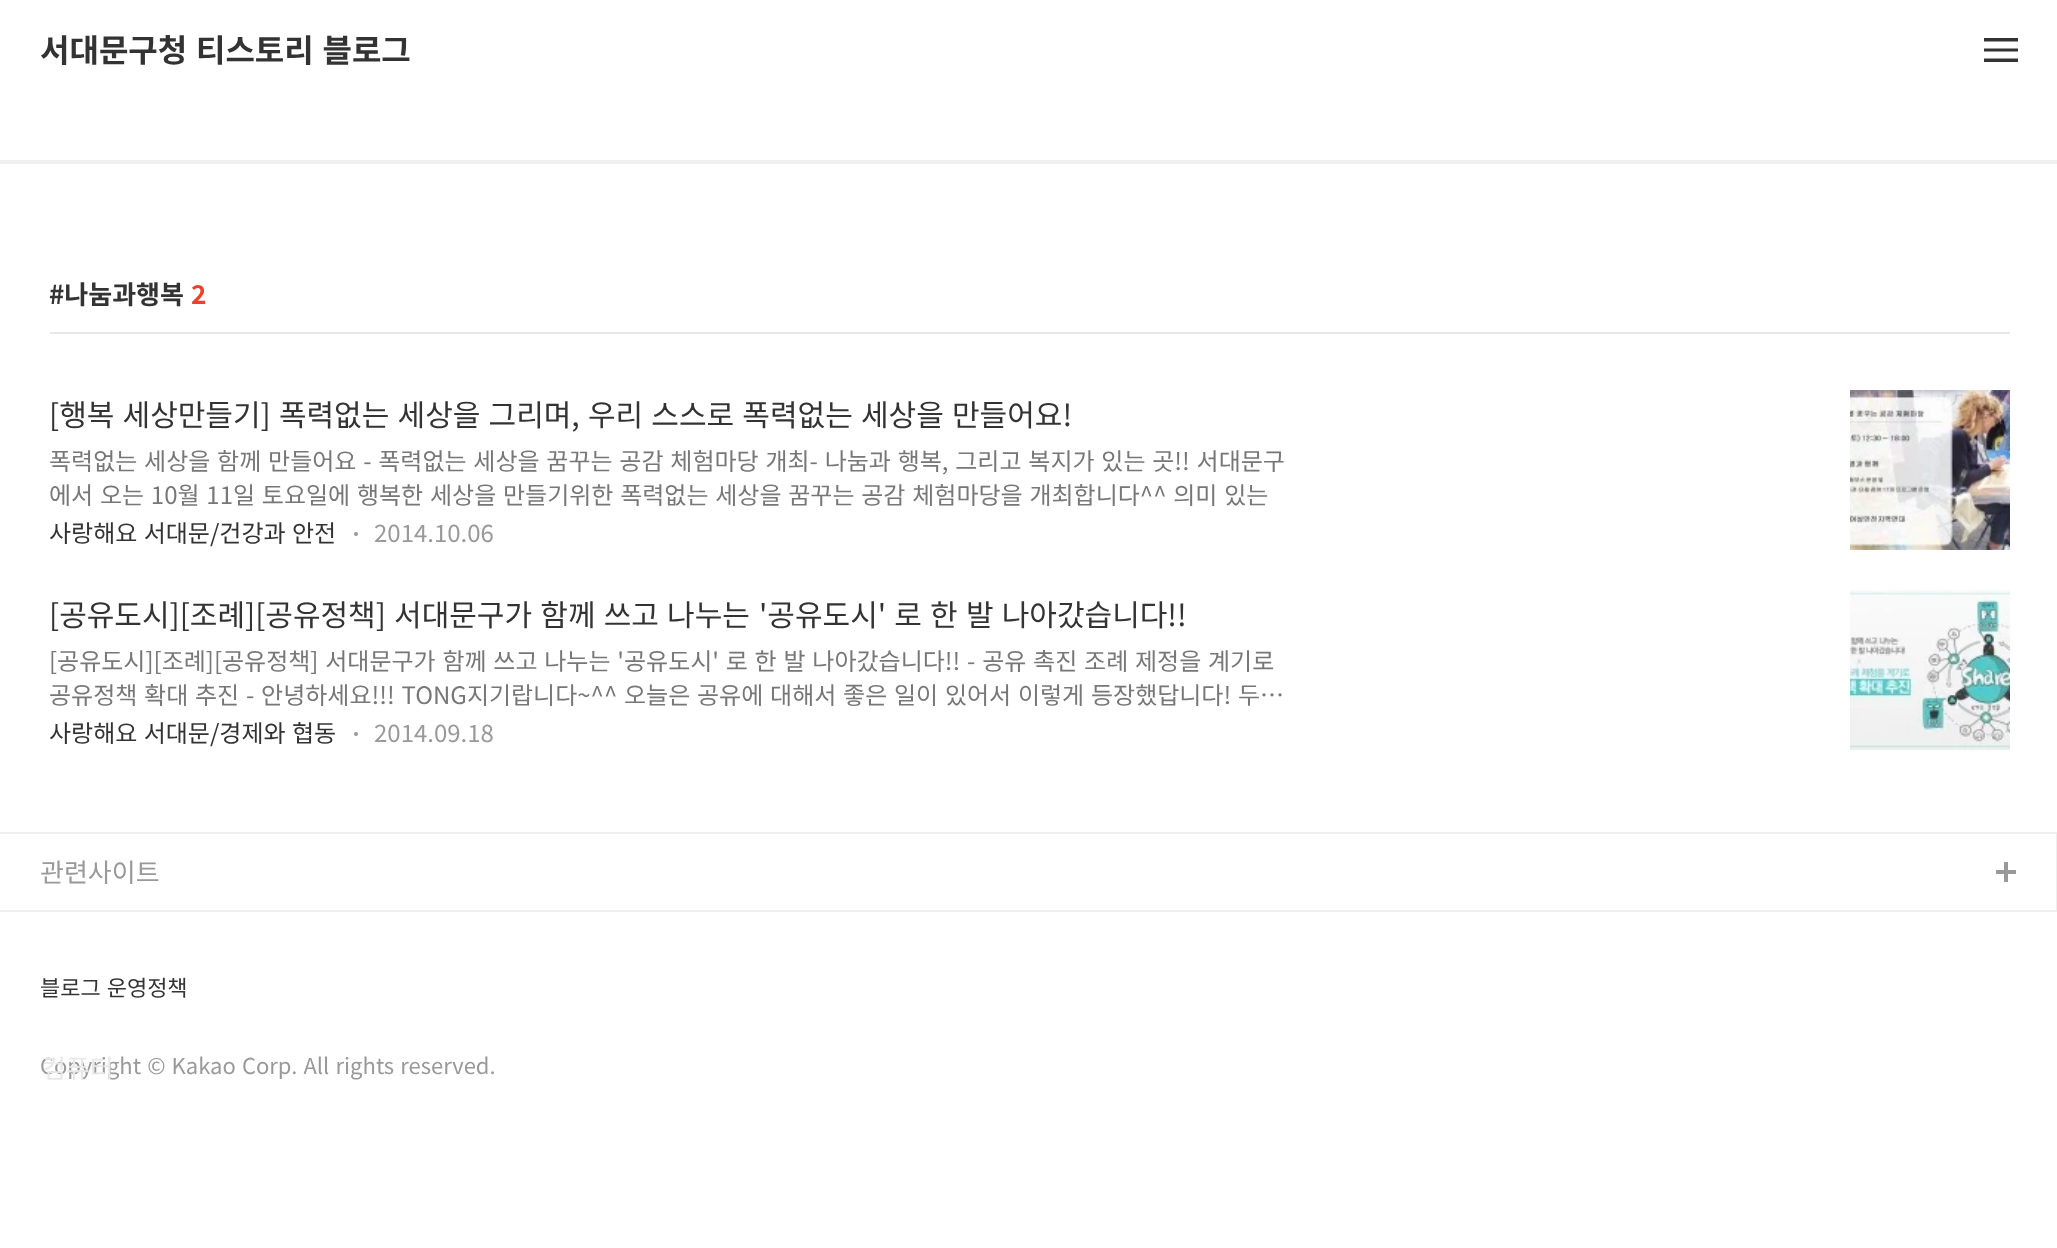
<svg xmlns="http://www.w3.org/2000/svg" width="2057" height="1248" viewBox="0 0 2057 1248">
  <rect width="100%" height="100%" fill="#ffffff"/>
  <rect x="0" y="160" width="2057" height="4" fill="#efefef"/>
  <text x="40" y="62" word-spacing="1.5" font-family="Noto Sans KR" font-size="32" font-weight="bold" fill="#333333">서대문구청 티스토리 블로그</text>
  <path d="M1984 38H2018V41.5H1984ZM1984 48.5H2018V51.5H1984ZM1984 58.5H2018V62H1984Z" fill="#333333" fill-rule="evenodd"/>
  <rect x="50" y="332" width="1960" height="2" fill="#e8e8e8"/>
  <text x="49" y="304" font-family="Noto Sans KR" font-size="26" font-weight="bold" fill="#333333">#나눔과행복</text>
  <text x="191" y="304" font-family="Noto Sans KR" font-size="26" font-weight="bold" fill="#ef402f">2</text>
  <text x="49" y="426" word-spacing="1.5" font-family="Noto Sans KR" font-size="30" fill="#333333">[행복 세상만들기] 폭력없는 세상을 그리며, 우리 스스로 폭력없는 세상을 만들어요!</text>
  <text x="49" y="470" word-spacing="1.4" font-family="Noto Sans KR" font-size="24" fill="#777777">폭력없는 세상을 함께 만들어요 - 폭력없는 세상을 꿈꾸는 공감 체험마당 개최- 나눔과 행복, 그리고 복지가 있는 곳!! 서대문구</text>
  <text x="49" y="504" word-spacing="1.4" font-family="Noto Sans KR" font-size="24" fill="#777777">에서 오는 10월 11일 토요일에 행복한 세상을 만들기위한 폭력없는 세상을 꿈꾸는 공감 체험마당을 개최합니다^^ 의미 있는</text>
  <text x="49" y="542" word-spacing="1" font-family="Noto Sans KR" font-size="24" fill="#333333">사랑해요 서대문/건강과 안전</text>
  <circle cx="356" cy="534" r="2" fill="#999999"/>
  <text x="374" y="542" font-family="Noto Sans KR" font-size="24" fill="#999999">2014.10.06</text>
  <image x="1850" y="390" width="160" height="160" href="img1.png"/>
  <text x="49" y="626" word-spacing="1.5" font-family="Noto Sans KR" font-size="30" fill="#333333">[공유도시][조례][공유정책] 서대문구가 함께 쓰고 나누는</text>
  <text x="759" y="626" word-spacing="1.5" font-family="Noto Sans KR" font-size="30" fill="#333333">'공유도시' 로 한 발 나아갔습니다!!</text>
  <text x="49" y="670" word-spacing="1.4" font-family="Noto Sans KR" font-size="24" fill="#777777">[공유도시][조례][공유정책] 서대문구가 함께 쓰고 나누는 '공유도시' 로 한 발 나아갔습니다!! - 공유 촉진 조례 제정을 계기로</text>
  <text x="49" y="704" word-spacing="1.4" font-family="Noto Sans KR" font-size="24" fill="#777777">공유정책 확대 추진 - 안녕하세요!!! TONG지기랍니다~^^ 오늘은 공유에 대해서 좋은 일이 있어서 이렇게 등장했답니다! 두…</text>
  <text x="49" y="742" word-spacing="1" font-family="Noto Sans KR" font-size="24" fill="#333333">사랑해요 서대문/경제와 협동</text>
  <circle cx="356" cy="734" r="2" fill="#999999"/>
  <text x="374" y="742" font-family="Noto Sans KR" font-size="24" fill="#999999">2014.09.18</text>
  <image x="1850" y="590" width="160" height="160" href="img2.png"/>
  <rect x="0" y="832" width="2057" height="2" fill="#efefef"/>
  <image x="1996" y="862" width="20" height="20" href="img3.png"/>
  <rect x="2056" y="832" width="1" height="80" fill="#efefef"/>
  <rect x="0" y="910" width="2057" height="2" fill="#efefef"/>
  <text x="40" y="882" font-family="Noto Sans KR" font-size="26" fill="#999999">관련사이트</text>
  <text x="40" y="1074" word-spacing="1.25" font-family="Noto Sans KR" font-size="22" fill="#999999">Copyright © Kakao Corp. All rights reserved.</text>
  <text x="42" y="1078" font-family="Noto Sans KR" font-size="26" fill="#e8e8e8">컴퓨터</text>
  <text x="40" y="996" word-spacing="1" font-family="Noto Sans KR" font-size="22" fill="#333333">블로그 운영정책</text>
</svg>
